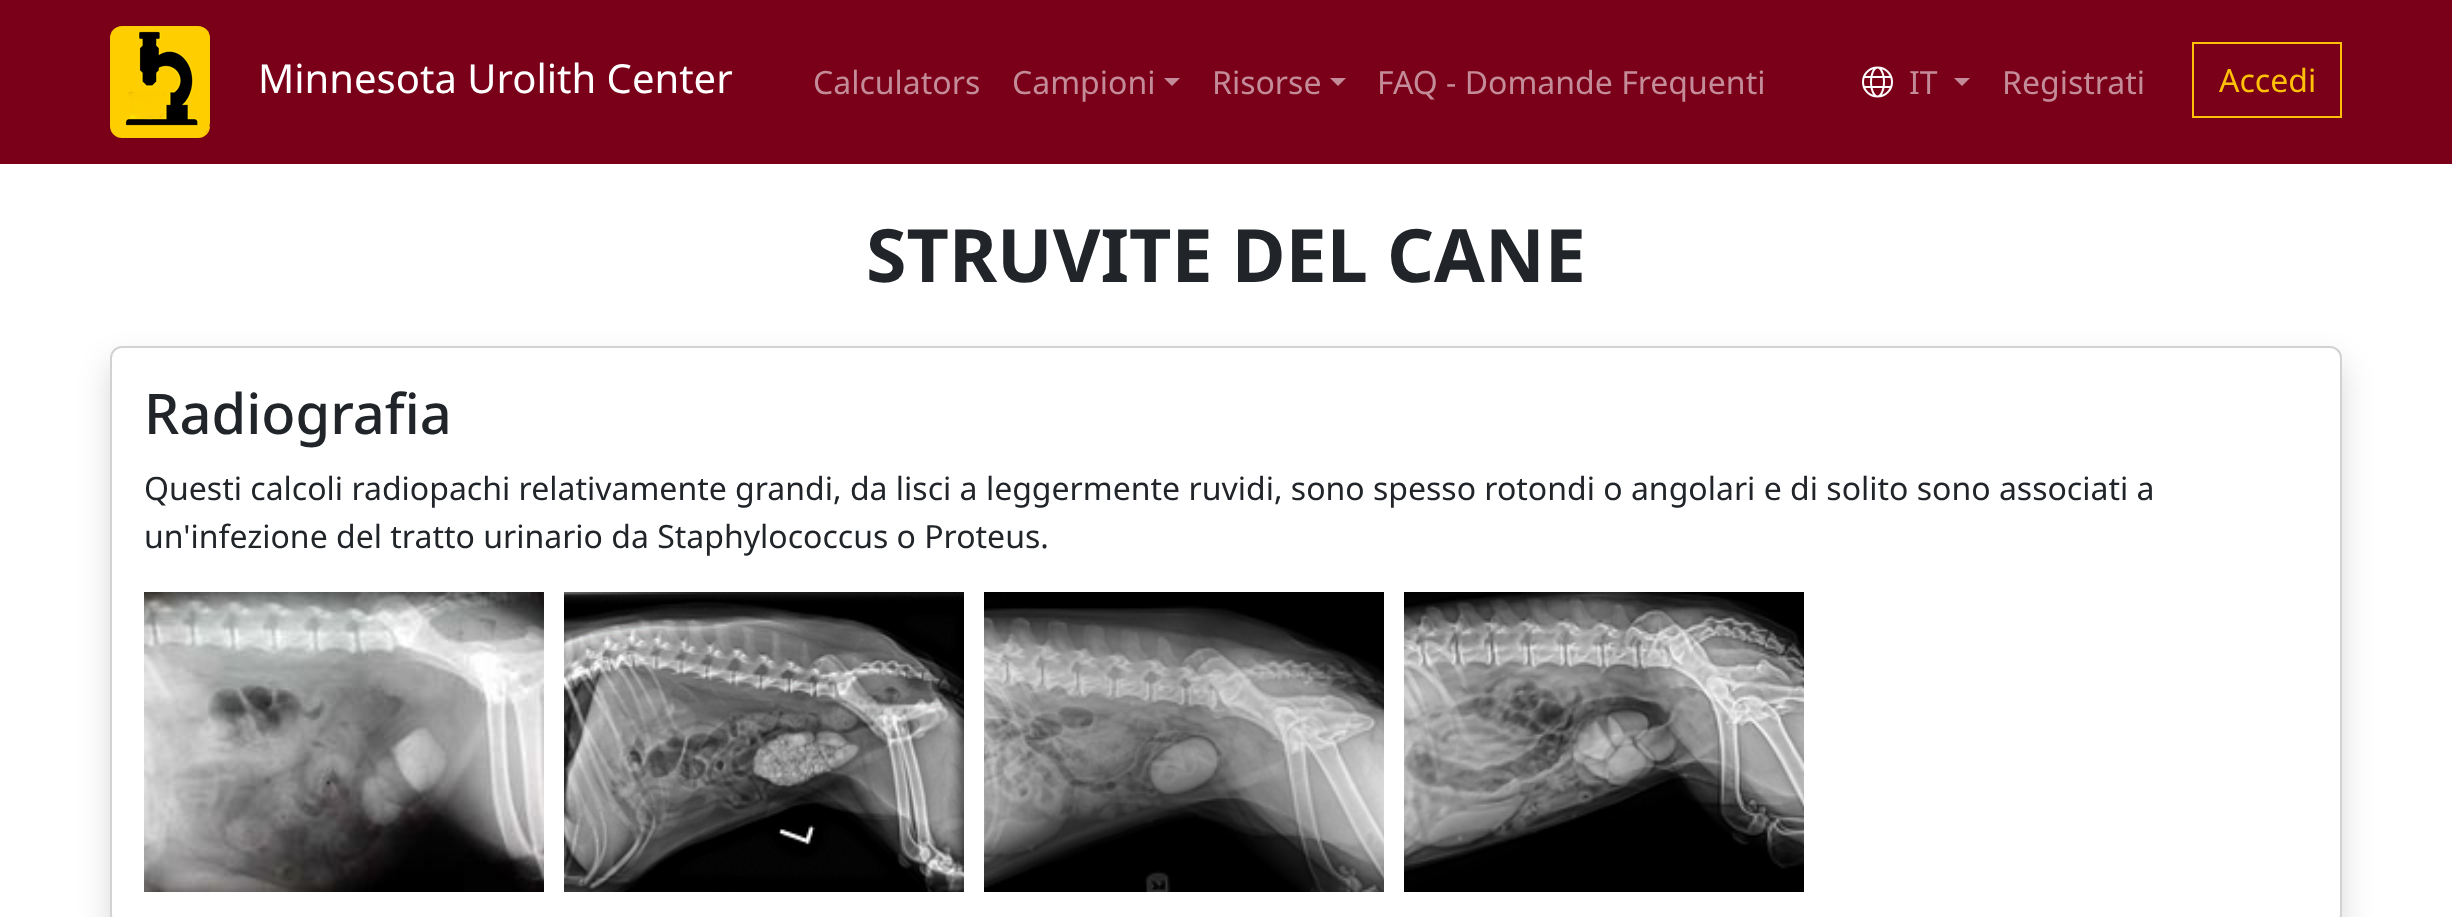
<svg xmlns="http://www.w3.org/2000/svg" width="2452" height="917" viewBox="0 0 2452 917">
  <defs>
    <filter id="blur1" x="-50%" y="-200%" width="200%" height="500%"><feGaussianBlur stdDeviation="16"/></filter>
  </defs>
  <rect width="100%" height="100%" fill="#ffffff"/>
  <rect x="0" y="0" width="2452" height="164" fill="#7a0019"/>
  <image x="110" y="26" width="100" height="112" href="img1.png"/>
  <text x="258" y="93" font-family="Noto Sans" font-size="40" fill="#ffffff">Minnesota Urolith Center</text>
  <text x="813" y="94" font-family="Noto Sans" font-size="32" fill="#c38c98">Calculators</text>
  <text x="1012" y="94" font-family="Noto Sans" font-size="32" fill="#c38c98">Campioni</text>
  <path d="M1164 78H1180L1172 86Z" fill="#c38c98"/>
  <text x="1212" y="94" font-family="Noto Sans" font-size="32" fill="#c38c98">Risorse</text>
  <path d="M1330 78H1346L1338 86Z" fill="#c38c98"/>
  <text x="1377" y="94" font-family="Noto Sans" font-size="32" fill="#c38c98">FAQ - Domande Frequenti</text>
  <image x="1862" y="66" width="31" height="32" href="img2.png"/>
  <text x="1909" y="94" font-family="Noto Sans" font-size="32" fill="#c38c98">IT</text>
  <path d="M1954 78H1970L1962 86Z" fill="#c38c98"/>
  <text x="2002" y="94" font-family="Noto Sans" font-size="32" fill="#c38c98">Registrati</text>
  <rect x="2193" y="43" width="148" height="74" fill="none" stroke="#ffc107" stroke-width="2"/>
  <text x="2219" y="92" font-family="Noto Sans" font-size="32" fill="#ffc107">Accedi</text>
  <text x="866" y="282" font-family="Noto Sans" font-size="73.5" font-weight="bold" fill="#212529">STRUVITE DEL CANE</text>
  <rect x="110" y="362" width="2232" height="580" rx="12" fill="#000000" fill-opacity="0.15" filter="url(#blur1)"/>
  <rect x="111" y="347" width="2230" height="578" rx="11" fill="#ffffff" stroke="#d2d2d2" stroke-width="2"/>
  <text x="144" y="434" font-family="Noto Sans" font-size="56" font-weight="500" fill="#212529">Radiografia</text>
  <text x="144" y="500" font-family="Noto Sans" font-size="32" fill="#212529">Questi calcoli radiopachi relativamente grandi, da lisci a leggermente ruvidi, sono spesso rotondi o angolari e di solito sono associati a</text>
  <text x="144" y="548" font-family="Noto Sans" font-size="32" fill="#212529">un'infezione del tratto urinario da Staphylococcus o Proteus.</text>
  <image x="144" y="592" width="400" height="300" href="img3.png"/>
  <image x="564" y="592" width="400" height="300" href="img4.png"/>
  <image x="984" y="592" width="400" height="300" href="img5.png"/>
  <image x="1404" y="592" width="400" height="300" href="img6.png"/>
</svg>
